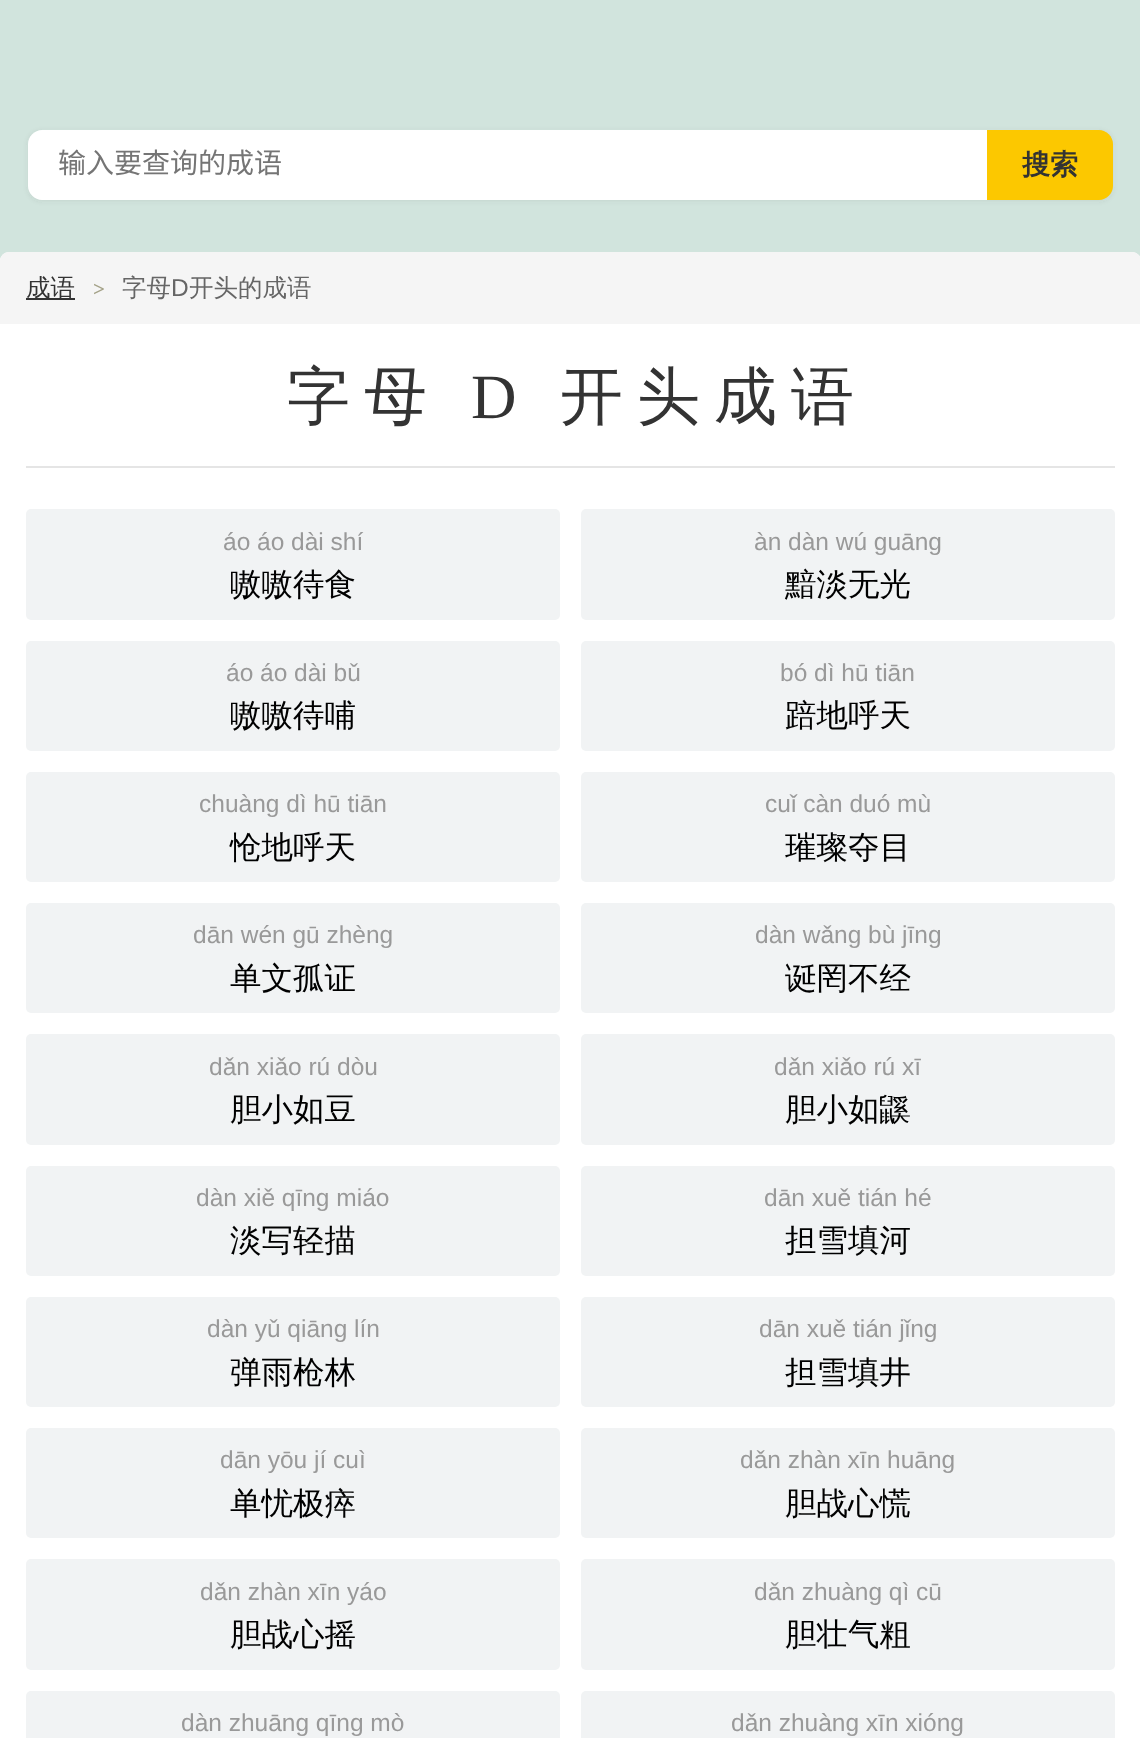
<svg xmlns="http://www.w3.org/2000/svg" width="1140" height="1738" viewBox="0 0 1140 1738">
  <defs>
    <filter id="blur1" x="-50%" y="-200%" width="200%" height="500%"><feGaussianBlur stdDeviation="2.5"/></filter>
  </defs>
  <rect width="100%" height="100%" fill="#d1e4dd"/>
  <rect x="28" y="131" width="1085" height="70" rx="14" fill="#414549" fill-opacity="0.1" filter="url(#blur1)"/>
  <path d="M42 130H987V200H42C34.5 200 28 193.5 28 186V144C28 136.5 34.5 130 42 130Z" fill="#ffffff"/>
  <text x="58" y="173" font-family="Noto Sans CJK SC" font-size="28" fill="#757575">输入要查询的成语</text>
  <path d="M987 130H1099C1106.5 130 1113 136.5 1113 144V186C1113 193.5 1106.5 200 1099 200H987Z" fill="#fcc800"/>
  <text x="1022" y="174" font-family="WenQuanYi Zen Hei" font-size="28" font-weight="bold" fill="#333333">搜索</text>
  <rect x="0" y="252" width="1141" height="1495" rx="9" fill="#ffffff"/>
  <path d="M9 252H1132C1137 252 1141 256 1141 261V324H0V261C0 256 4 252 9 252Z" fill="#f5f5f5"/>
  <rect x="26" y="298" width="49" height="2" fill="#333333"/>
  <text x="26" y="296" font-family="WenQuanYi Zen Hei" font-size="24.5" font-weight="500" fill="#333333">成语</text>
  <text x="93" y="296" font-family="Liberation Serif" font-size="21" font-weight="bold" fill="#a4a288">&gt;</text>
  <text x="122" y="296" font-family="WenQuanYi Zen Hei" font-size="24.5" font-weight="500" fill="#666666">字母</text>
  <text x="171" y="296" font-family="Liberation Sans" font-size="24.5" fill="#666666">D</text>
  <text x="189" y="296" font-family="WenQuanYi Zen Hei" font-size="24.5" font-weight="500" fill="#666666">开头的成语</text>
  <text x="287" y="418" font-family="WenQuanYi Zen Hei" font-size="63" font-weight="500" letter-spacing="14" fill="#333333">字母</text>
  <text x="471" y="418" font-family="Liberation Serif" font-size="63" letter-spacing="14" fill="#333333">D</text>
  <text x="560" y="418" font-family="WenQuanYi Zen Hei" font-size="63" font-weight="500" letter-spacing="14" fill="#333333">开头成语</text>
  <rect x="26" y="466" width="1089" height="2" fill="#e5e5e5"/>
  <rect x="26" y="509" width="534" height="111" rx="5" fill="#f1f3f4"/>
  <text x="223" y="550" font-family="Liberation Sans" font-size="24.5" fill="#999999">áo áo dài shí</text>
  <text x="230" y="595" font-family="WenQuanYi Zen Hei" font-size="31.5" font-weight="500" fill="#000000">嗷嗷待食</text>
  <rect x="581" y="509" width="534" height="111" rx="5" fill="#f1f3f4"/>
  <text x="754" y="550" font-family="Liberation Sans" font-size="24.5" fill="#999999">àn dàn wú guāng</text>
  <text x="785" y="595" font-family="WenQuanYi Zen Hei" font-size="31.5" font-weight="500" fill="#000000">黯淡无光</text>
  <rect x="26" y="641" width="534" height="110" rx="5" fill="#f1f3f4"/>
  <text x="226" y="681" font-family="Liberation Sans" font-size="24.5" fill="#999999">áo áo dài bǔ</text>
  <text x="230" y="726" font-family="WenQuanYi Zen Hei" font-size="31.5" font-weight="500" fill="#000000">嗷嗷待哺</text>
  <rect x="581" y="641" width="534" height="110" rx="5" fill="#f1f3f4"/>
  <text x="780" y="681" font-family="Liberation Sans" font-size="24.5" fill="#999999">bó dì hū tiān</text>
  <text x="785" y="726" font-family="WenQuanYi Zen Hei" font-size="31.5" font-weight="500" fill="#000000">踣地呼天</text>
  <rect x="26" y="772" width="534" height="110" rx="5" fill="#f1f3f4"/>
  <text x="199" y="812" font-family="Liberation Sans" font-size="24.5" fill="#999999">chuàng dì hū tiān</text>
  <text x="230" y="858" font-family="WenQuanYi Zen Hei" font-size="31.5" font-weight="500" fill="#000000">怆地呼天</text>
  <rect x="581" y="772" width="534" height="110" rx="5" fill="#f1f3f4"/>
  <text x="765" y="812" font-family="Liberation Sans" font-size="24.5" fill="#999999">cuǐ càn duó mù</text>
  <text x="785" y="858" font-family="WenQuanYi Zen Hei" font-size="31.5" font-weight="500" fill="#000000">璀璨夺目</text>
  <rect x="26" y="903" width="534" height="110" rx="5" fill="#f1f3f4"/>
  <text x="193" y="943" font-family="Liberation Sans" font-size="24.5" fill="#999999">dān wén gū zhèng</text>
  <text x="230" y="989" font-family="WenQuanYi Zen Hei" font-size="31.5" font-weight="500" fill="#000000">单文孤证</text>
  <rect x="581" y="903" width="534" height="110" rx="5" fill="#f1f3f4"/>
  <text x="755" y="943" font-family="Liberation Sans" font-size="24.5" fill="#999999">dàn wǎng bù jīng</text>
  <text x="785" y="989" font-family="WenQuanYi Zen Hei" font-size="31.5" font-weight="500" fill="#000000">诞罔不经</text>
  <rect x="26" y="1034" width="534" height="111" rx="5" fill="#f1f3f4"/>
  <text x="209" y="1075" font-family="Liberation Sans" font-size="24.5" fill="#999999">dǎn xiǎo rú dòu</text>
  <text x="230" y="1120" font-family="WenQuanYi Zen Hei" font-size="31.5" font-weight="500" fill="#000000">胆小如豆</text>
  <rect x="581" y="1034" width="534" height="111" rx="5" fill="#f1f3f4"/>
  <text x="774" y="1075" font-family="Liberation Sans" font-size="24.5" fill="#999999">dǎn xiǎo rú xī</text>
  <text x="785" y="1120" font-family="WenQuanYi Zen Hei" font-size="31.5" font-weight="500" fill="#000000">胆小如鼷</text>
  <rect x="26" y="1166" width="534" height="110" rx="5" fill="#f1f3f4"/>
  <text x="196" y="1206" font-family="Liberation Sans" font-size="24.5" fill="#999999">dàn xiě qīng miáo</text>
  <text x="230" y="1251" font-family="WenQuanYi Zen Hei" font-size="31.5" font-weight="500" fill="#000000">淡写轻描</text>
  <rect x="581" y="1166" width="534" height="110" rx="5" fill="#f1f3f4"/>
  <text x="764" y="1206" font-family="Liberation Sans" font-size="24.5" fill="#999999">dān xuě tián hé</text>
  <text x="785" y="1251" font-family="WenQuanYi Zen Hei" font-size="31.5" font-weight="500" fill="#000000">担雪填河</text>
  <rect x="26" y="1297" width="534" height="110" rx="5" fill="#f1f3f4"/>
  <text x="207" y="1337" font-family="Liberation Sans" font-size="24.5" fill="#999999">dàn yǔ qiāng lín</text>
  <text x="230" y="1383" font-family="WenQuanYi Zen Hei" font-size="31.5" font-weight="500" fill="#000000">弹雨枪林</text>
  <rect x="581" y="1297" width="534" height="110" rx="5" fill="#f1f3f4"/>
  <text x="759" y="1337" font-family="Liberation Sans" font-size="24.5" fill="#999999">dān xuě tián jǐng</text>
  <text x="785" y="1383" font-family="WenQuanYi Zen Hei" font-size="31.5" font-weight="500" fill="#000000">担雪填井</text>
  <rect x="26" y="1428" width="534" height="110" rx="5" fill="#f1f3f4"/>
  <text x="220" y="1468" font-family="Liberation Sans" font-size="24.5" fill="#999999">dān yōu jí cuì</text>
  <text x="230" y="1514" font-family="WenQuanYi Zen Hei" font-size="31.5" font-weight="500" fill="#000000">单忧极瘁</text>
  <rect x="581" y="1428" width="534" height="110" rx="5" fill="#f1f3f4"/>
  <text x="740" y="1468" font-family="Liberation Sans" font-size="24.5" fill="#999999">dǎn zhàn xīn huāng</text>
  <text x="785" y="1514" font-family="WenQuanYi Zen Hei" font-size="31.5" font-weight="500" fill="#000000">胆战心慌</text>
  <rect x="26" y="1559" width="534" height="111" rx="5" fill="#f1f3f4"/>
  <text x="200" y="1600" font-family="Liberation Sans" font-size="24.5" fill="#999999">dǎn zhàn xīn yáo</text>
  <text x="230" y="1645" font-family="WenQuanYi Zen Hei" font-size="31.5" font-weight="500" fill="#000000">胆战心摇</text>
  <rect x="581" y="1559" width="534" height="111" rx="5" fill="#f1f3f4"/>
  <text x="754" y="1600" font-family="Liberation Sans" font-size="24.5" fill="#999999">dǎn zhuàng qì cū</text>
  <text x="785" y="1645" font-family="WenQuanYi Zen Hei" font-size="31.5" font-weight="500" fill="#000000">胆壮气粗</text>
  <rect x="26" y="1691" width="534" height="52" rx="5" fill="#f1f3f4"/>
  <text x="181" y="1731" font-family="Liberation Sans" font-size="24.5" fill="#999999">dàn zhuāng qīng mò</text>
  <rect x="581" y="1691" width="534" height="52" rx="5" fill="#f1f3f4"/>
  <text x="731" y="1731" font-family="Liberation Sans" font-size="24.5" fill="#999999">dǎn zhuàng xīn xióng</text>
</svg>
